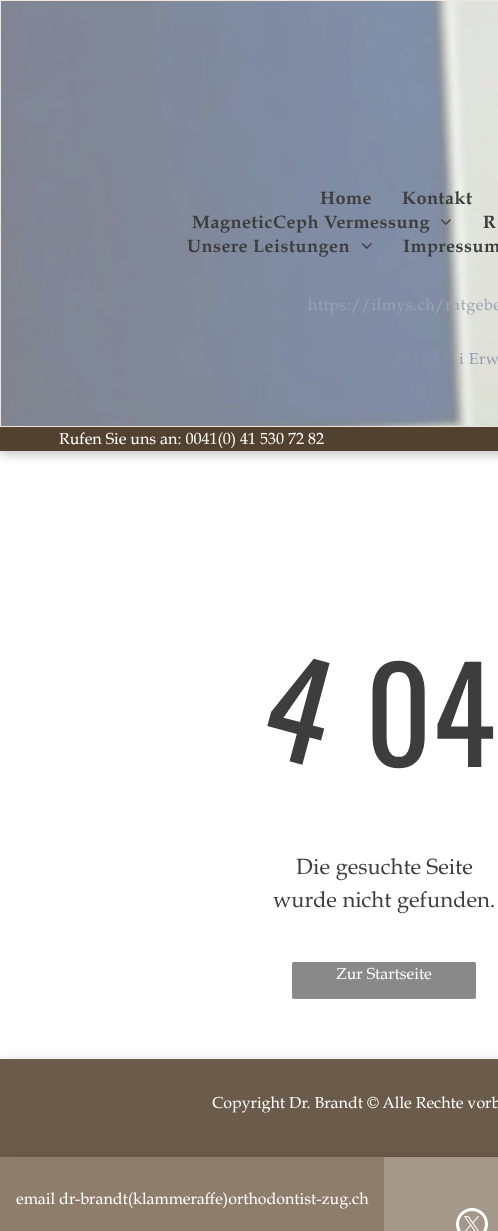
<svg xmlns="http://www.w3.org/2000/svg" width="498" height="1231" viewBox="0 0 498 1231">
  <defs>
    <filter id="blur1" x="-50%" y="-200%" width="200%" height="500%"><feGaussianBlur stdDeviation="5.5"/></filter>
  </defs>
  <rect width="100%" height="100%" fill="#ffffff"/>
  <rect x="0" y="3" width="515" height="451" fill="#000000" fill-opacity="0.25" filter="url(#blur1)"/>
  <rect x="0.5" y="0.5" width="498" height="426" fill="none" stroke="#f0e6dc"/>
  <image x="1" y="1" width="497" height="425" href="img1.png"/>
  <text x="320" y="204" font-family="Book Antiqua" font-size="18" font-weight="bold" letter-spacing="0.5" fill="#3d3d3d">Home</text>
  <text x="402" y="204" font-family="Book Antiqua" font-size="18" font-weight="bold" letter-spacing="0.5" fill="#3d3d3d">Kontakt</text>
  <text x="192" y="228" font-family="Book Antiqua" font-size="18" font-weight="bold" letter-spacing="0.5" fill="#3d3d3d">MagneticCeph Vermessung</text>
  <image x="440" y="219" width="11" height="6" href="img2.png"/>
  <text x="187" y="252" font-family="Book Antiqua" font-size="18" font-weight="bold" letter-spacing="0.5" fill="#3d3d3d">Unsere Leistungen</text>
  <image x="361" y="243" width="11" height="6" href="img3.png"/>
  <text x="483" y="228" font-family="Book Antiqua" font-size="18" font-weight="bold" letter-spacing="0.5" fill="#3d3d3d">R</text>
  <text x="308" y="310" font-family="Book Antiqua" font-size="16" letter-spacing="0.5" fill="#9ba4b3">https://ilmys.ch/ratgebe</text>
  <text x="459" y="364" font-family="Book Antiqua" font-size="16" letter-spacing="0.5" fill="#929cae">i Erw</text>
  <text x="403" y="252" font-family="Book Antiqua" font-size="18" font-weight="bold" letter-spacing="0.5" fill="#3d3d3d">Impressum</text>
  <rect x="0" y="427" width="498" height="24" fill="#534130"/>
  <text x="59" y="444" font-family="Book Antiqua" font-size="16" fill="#ffffff">Rufen Sie uns an: 0041(0) 41 530 72 82</text>
  <text x="255" y="752" transform="rotate(15 255 752)" font-family="Oswald" font-size="130" fill="#3d3d3d">4</text>
  <text x="365" y="767" font-family="Oswald" font-size="130" fill="#3d3d3d">04</text>
  <text x="296" y="874" font-family="Book Antiqua" font-size="22" fill="#3d3d3d">Die gesuchte Seite</text>
  <text x="273" y="907" font-family="Book Antiqua" font-size="22" fill="#3d3d3d">wurde nicht gefunden.</text>
  <rect x="292" y="962" width="184" height="37" rx="2" fill="#898989"/>
  <text x="336" y="979" font-family="Book Antiqua" font-size="16" fill="#ffffff">Zur Startseite</text>
  <rect x="0" y="1062" width="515" height="98" fill="#000000" fill-opacity="0.25" filter="url(#blur1)"/>
  <rect x="0" y="1059" width="498" height="98" fill="#6b5b4b"/>
  <text x="212" y="1108" font-family="Book Antiqua" font-size="16" fill="#ffffff">Copyright Dr. Brandt © Alle Rechte vorb</text>
  <rect x="0" y="1160" width="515" height="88" fill="#000000" fill-opacity="0.25" filter="url(#blur1)"/>
  <rect x="0" y="1157" width="384" height="74" fill="#8f7d6b"/>
  <rect x="384" y="1157" width="114" height="74" fill="#a59789"/>
  <text x="16" y="1204" font-family="Book Antiqua" font-size="16" fill="#ffffff">email dr-brandt(klammeraffe)orthodontist-zug.ch</text>
  <circle cx="472" cy="1224" r="14.5" fill="none" stroke="#ffffff" stroke-width="3"/>
  <image x="464" y="1216" width="15" height="15" href="img4.png"/>
</svg>
